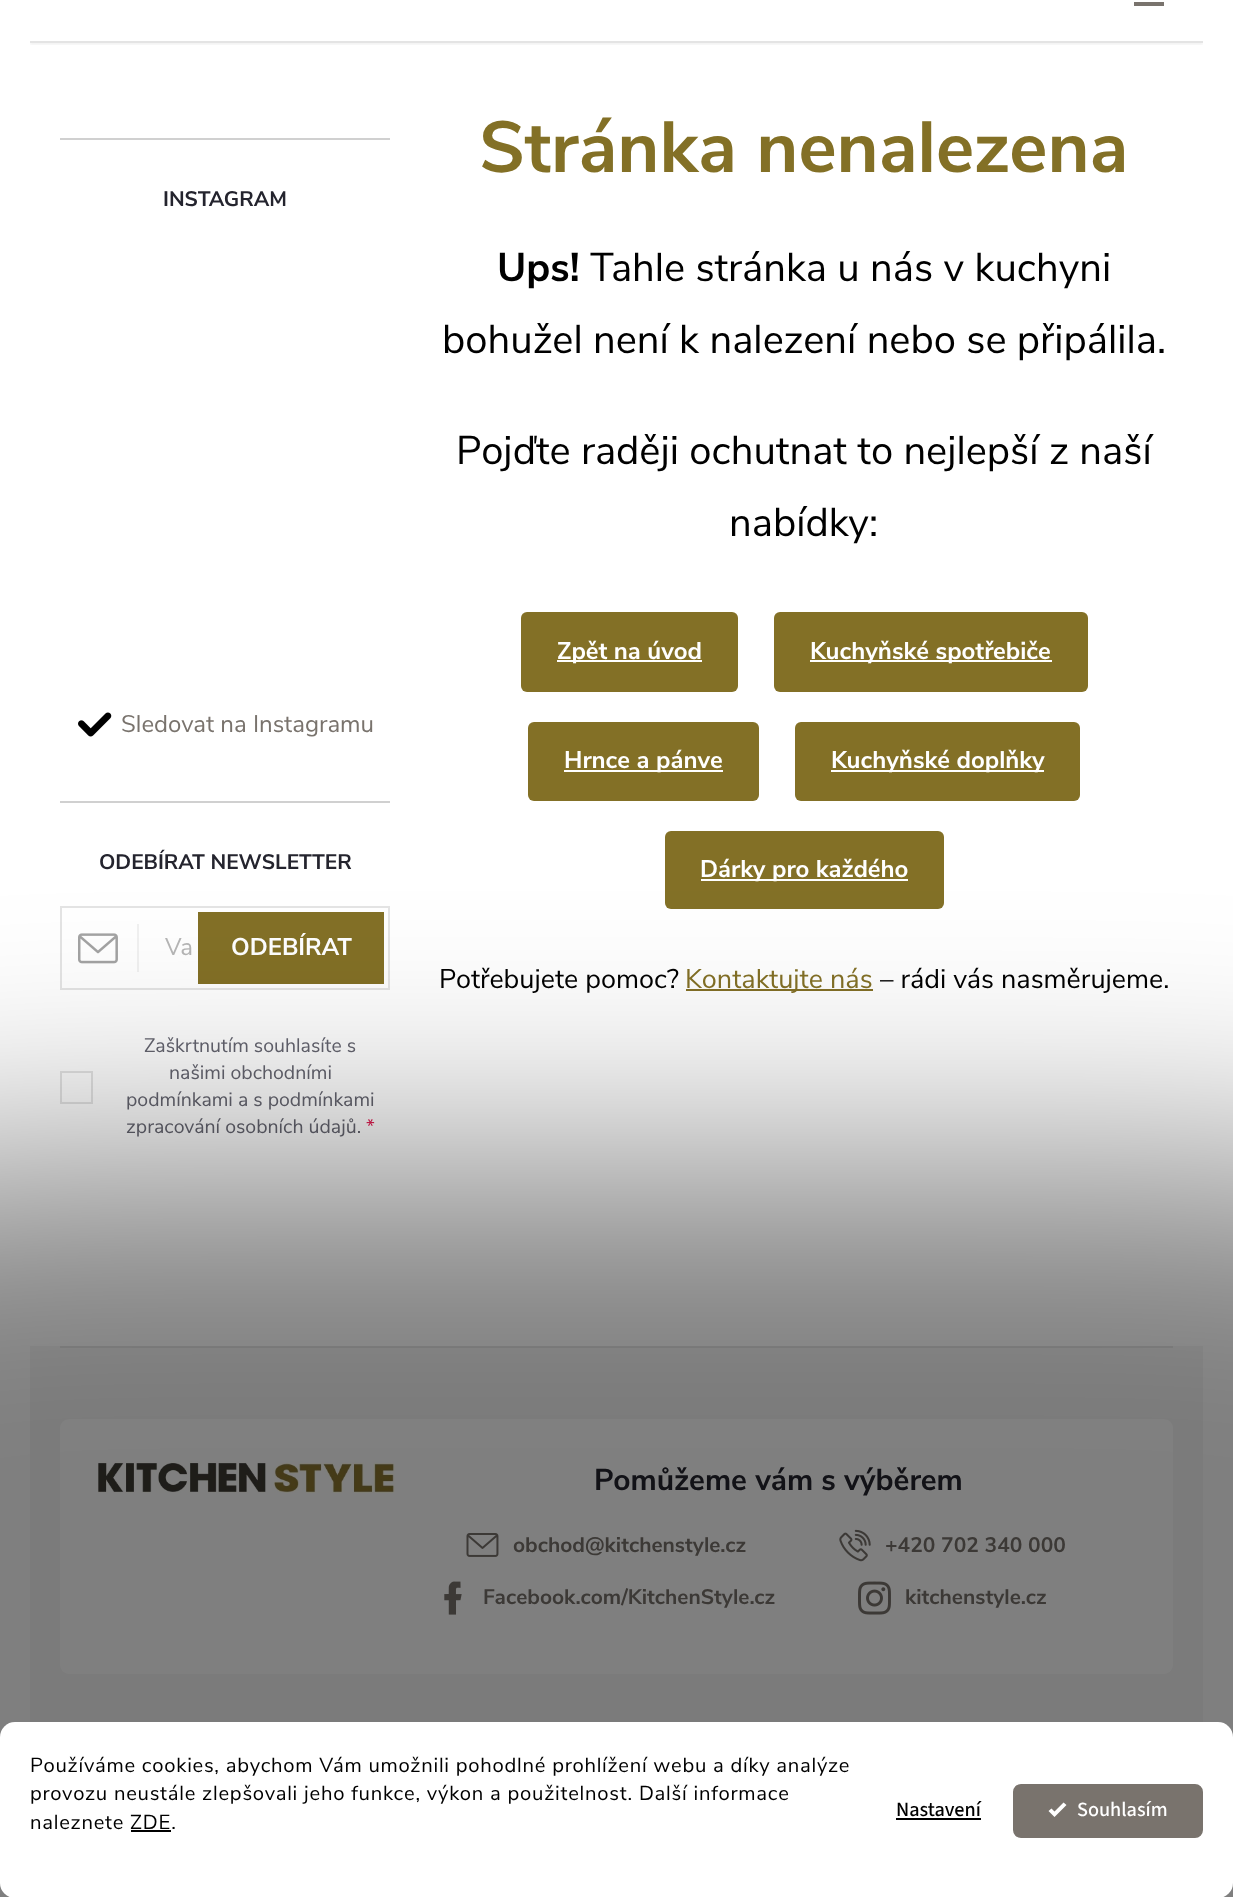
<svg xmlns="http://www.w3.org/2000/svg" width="1233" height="1897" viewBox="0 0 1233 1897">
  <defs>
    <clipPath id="clip1"><rect x="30" y="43" width="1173" height="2"/></clipPath>
    <filter id="blur1" x="-50%" y="-200%" width="200%" height="500%"><feGaussianBlur stdDeviation="1.5"/></filter>
    <filter id="blur2" x="-50%" y="-200%" width="200%" height="500%"><feGaussianBlur stdDeviation="120"/></filter>
  </defs>
  <rect width="100%" height="100%" fill="#ffffff"/>
  <g clip-path="url(#clip1)">
    <rect x="30" y="-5" width="1173" height="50" fill="#000000" fill-opacity="0.05" filter="url(#blur1)"/>
  </g>
  <rect x="30" y="41" width="1173" height="2" fill="#e4e4e4"/>
  <rect x="1134" y="2" width="30" height="4" fill="#79736d"/>
  <rect x="60" y="138" width="330" height="2" fill="#d0d0d0"/>
  <rect x="60" y="801" width="330" height="2" fill="#d0d0d0"/>
  <text x="163" y="206" font-family="Nunito Sans" font-size="21" font-weight="bold" fill="#24242e">INSTAGRAM</text>
  <image x="78" y="712" width="34" height="25" href="img1.png"/>
  <text x="121" y="732" font-family="Nunito Sans" font-size="24" fill="#79736d">Sledovat na Instagramu</text>
  <text x="99" y="869" font-family="Nunito Sans" font-size="21" font-weight="bold" fill="#24242e">ODEBÍRAT NEWSLETTER</text>
  <rect x="61" y="907" width="328" height="82" fill="none" stroke="#e4e4e4" stroke-width="2"/>
  <rect x="137" y="924" width="2" height="48" fill="#f1f1f1"/>
  <image x="78" y="933" width="40" height="31" href="img2.png"/>
  <text x="165" y="955" font-family="Nunito Sans" font-size="24" fill="#b6b6b6">Va</text>
  <rect x="198" y="912" width="186" height="72" fill="#837026"/>
  <text x="231" y="955" font-family="Nunito Sans" font-size="24" font-weight="bold" fill="#ffffff">ODEBÍRAT</text>
  <text x="144" y="1052" font-family="Nunito Sans" font-size="19.5" fill="#656570">Zaškrtnutím souhlasíte s</text>
  <rect x="61" y="1072" width="31" height="31" fill="none" stroke="#e4e4e4" stroke-width="2"/>
  <text x="169" y="1079" font-family="Nunito Sans" font-size="19.5" fill="#656570">našimi obchodními</text>
  <text x="126" y="1106" font-family="Nunito Sans" font-size="19.5" fill="#656570">podmínkami a s podmínkami</text>
  <text x="126" y="1133" font-family="Nunito Sans" font-size="19.5" fill="#656570">zpracování osobních údajů.</text>
  <text x="366" y="1133" font-family="Nunito Sans" font-size="19.5" fill="#e31e53">*</text>
  <text x="479" y="172" font-family="Nunito Sans" font-size="72" font-weight="bold" fill="#837026">Stránka nenalezena</text>
  <text x="497" y="281" font-family="Nunito Sans" font-size="40" font-weight="bold" fill="#000000">Ups!</text>
  <text x="590" y="281" font-family="Nunito Sans" font-size="40" fill="#000000">Tahle stránka u nás v kuchyni</text>
  <text x="442" y="353" font-family="Nunito Sans" font-size="40" fill="#000000">bohužel není k nalezení nebo se připálila.</text>
  <text x="456" y="464" font-family="Nunito Sans" font-size="40" fill="#000000">Pojďte raději ochutnat to nejlepší z naší</text>
  <text x="729" y="536" font-family="Nunito Sans" font-size="40" fill="#000000">nabídky:</text>
  <rect x="521" y="612" width="217" height="80" rx="6" fill="#837026"/>
  <rect x="557" y="660" width="145" height="2" fill="#ffffff"/>
  <text x="557" y="659" font-family="Nunito Sans" font-size="24" font-weight="bold" fill="#ffffff">Zpět na úvod</text>
  <rect x="774" y="612" width="314" height="80" rx="6" fill="#837026"/>
  <rect x="810" y="660" width="242" height="2" fill="#ffffff"/>
  <text x="810" y="659" font-family="Nunito Sans" font-size="24" font-weight="bold" fill="#ffffff">Kuchyňské spotřebiče</text>
  <rect x="528" y="722" width="231" height="79" rx="6" fill="#837026"/>
  <rect x="564" y="770" width="159" height="2" fill="#ffffff"/>
  <text x="564" y="768" font-family="Nunito Sans" font-size="24" font-weight="bold" fill="#ffffff">Hrnce a pánve</text>
  <rect x="795" y="722" width="285" height="79" rx="6" fill="#837026"/>
  <rect x="831" y="770" width="213" height="2" fill="#ffffff"/>
  <text x="831" y="768" font-family="Nunito Sans" font-size="24" font-weight="bold" fill="#ffffff">Kuchyňské doplňky</text>
  <rect x="665" y="831" width="279" height="78" rx="6" fill="#837026"/>
  <rect x="701" y="879" width="207" height="2" fill="#ffffff"/>
  <text x="700" y="877" font-family="Nunito Sans" font-size="24" font-weight="bold" fill="#ffffff">Dárky pro každého</text>
  <text x="439" y="988" font-family="Nunito Sans" font-size="27" fill="#000000">Potřebujete pomoc?</text>
  <rect x="686" y="989" width="187" height="2" fill="#837026"/>
  <text x="685" y="988" font-family="Nunito Sans" font-size="27" fill="#837026">Kontaktujte nás</text>
  <text x="880" y="988" font-family="Nunito Sans" font-size="27" fill="#000000">– rádi vás nasměrujeme.</text>
  <rect x="30" y="1346" width="1173" height="376" fill="#f6f6f6"/>
  <rect x="60" y="1346" width="1113" height="2" fill="#e4e4e4"/>
  <rect x="60" y="1419" width="1113" height="255" rx="9" fill="#ffffff"/>
  <image x="98" y="1461" width="297" height="32" href="img3.png"/>
  <text x="594" y="1490" font-family="Nunito Sans" font-size="30" font-weight="bold" fill="#24242e">Pomůžeme vám s výběrem</text>
  <image x="466" y="1533" width="33" height="24" href="img4.png"/>
  <text x="513" y="1552" font-family="Nunito Sans" font-size="21" font-weight="bold" fill="#79736d">obchod@kitchenstyle.cz</text>
  <image x="839" y="1529" width="32" height="33" href="img5.png"/>
  <text x="885" y="1552" font-family="Nunito Sans" font-size="21" font-weight="bold" fill="#79736d">+420 702 340 000</text>
  <image x="444" y="1581" width="18" height="34" href="img6.png"/>
  <text x="483" y="1604" font-family="Nunito Sans" font-size="21" font-weight="bold" fill="#79736d">Facebook.com/KitchenStyle.cz</text>
  <image x="858" y="1581" width="33" height="34" href="img7.png"/>
  <text x="905" y="1604" font-family="Nunito Sans" font-size="21" font-weight="bold" fill="#79736d">kitchenstyle.cz</text>
  <rect x="-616" y="1166" width="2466" height="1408" rx="632" fill="#000000" fill-opacity="0.5" filter="url(#blur2)"/>
  <rect x="0" y="1722" width="1233" height="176" rx="15" fill="#ffffff"/>
  <text x="30" y="1772" font-family="Nunito Sans" font-size="20.25" letter-spacing="0.75" fill="#000000">Používáme cookies, abychom Vám umožnili pohodlné prohlížení webu a díky analýze</text>
  <text x="30" y="1800" font-family="Nunito Sans" font-size="20.25" letter-spacing="0.75" fill="#000000">provozu neustále zlepšovali jeho funkce, výkon a použitelnost. Další informace</text>
  <text x="30" y="1829" font-family="Nunito Sans" font-size="20.25" letter-spacing="0.75" fill="#000000">naleznete ZDE.</text>
  <rect x="131" y="1830" width="40" height="2" fill="#000000"/>
  <text x="896" y="1816" font-family="'Source Sans 3'" font-size="20.25" font-weight="500" fill="#000000">Nastavení</text>
  <rect x="896" y="1818" width="85" height="2" fill="#000000"/>
  <rect x="1014" y="1785" width="188" height="52" rx="7" fill="#79736d" stroke="#79736d" stroke-width="2"/>
  <path d="M1063.5 1802.5L1054.5 1811.5L1051.5 1808.5L1048.5 1811L1054.5 1817L1066.5 1805Z" fill="#ffffff"/>
  <text x="1077" y="1816" font-family="'Source Sans 3'" font-size="20.25" font-weight="500" fill="#ffffff">Souhlasím</text>
</svg>
